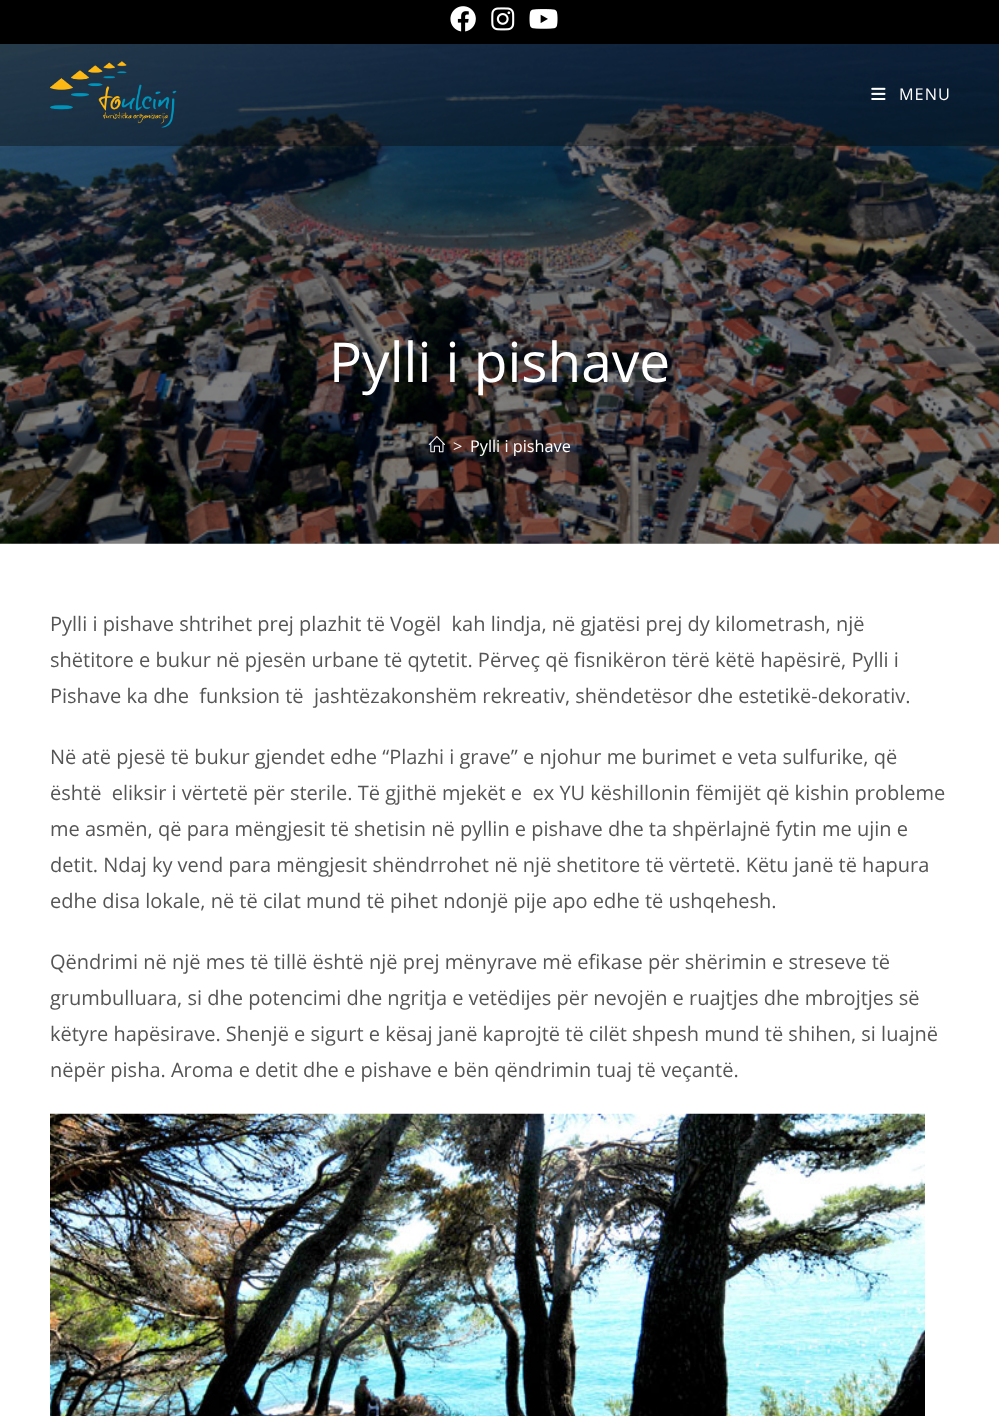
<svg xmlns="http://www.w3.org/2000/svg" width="999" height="1416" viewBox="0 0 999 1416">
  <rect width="100%" height="100%" fill="#ffffff"/>
  <rect x="0" y="0" width="999" height="44" fill="#000000"/>
  <image x="450" y="6" width="26" height="26" href="img1.png"/>
  <image x="491" y="7" width="24" height="24" href="img2.png"/>
  <image x="529" y="9" width="29" height="20" href="img3.png"/>
  <image x="0" y="44" width="999" height="500" href="img6.png"/>
  <rect x="0" y="44" width="999" height="102" fill="#0a0a0a" fill-opacity="0.41"/>
  <image x="50" y="61" width="127" height="67" href="img4.png"/>
  <image x="871" y="87" width="15" height="13" href="img5.png"/>
  <text x="899" y="100" font-family="Open Sans" font-size="16.25" letter-spacing="1" fill="#ffffff">MENU</text>
  <text x="329" y="382" font-family="Open Sans" font-size="55" fill="#ffffff">Pylli i pishave</text>
  <image x="428" y="436" width="17" height="17" href="img7.png"/>
  <text x="453" y="452" font-family="Open Sans" font-size="16.25" fill="#ffffff">&gt;</text>
  <text x="470" y="452" font-family="Open Sans" font-size="16.25" fill="#ffffff">Pylli i pishave</text>
  <text x="50" y="631" font-family="Open Sans" font-size="20" fill="#555555" xml:space="preserve">Pylli i pishave shtrihet prej plazhit të Vogël  kah lindja, në gjatësi prej dy kilometrash, një</text>
  <text x="50" y="667" font-family="Open Sans" font-size="20" fill="#555555">shëtitore e bukur në pjesën urbane të qytetit. Përveç që fisnikëron tërë këtë hapësirë, Pylli i</text>
  <text x="50" y="703" font-family="Open Sans" font-size="20" fill="#555555" xml:space="preserve">Pishave ka dhe  funksion të  jashtëzakonshëm rekreativ, shëndetësor dhe estetikë-dekorativ.</text>
  <text x="50" y="764" font-family="Open Sans" font-size="20" fill="#555555">Në atë pjesë të bukur gjendet edhe “Plazhi i grave” e njohur me burimet e veta sulfurike, që</text>
  <text x="50" y="800" font-family="Open Sans" font-size="20" fill="#555555" xml:space="preserve">është  eliksir i vërtetë për sterile. Të gjithë mjekët e  ex YU këshillonin fëmijët që kishin probleme</text>
  <text x="50" y="836" font-family="Open Sans" font-size="20" fill="#555555">me asmën, që para mëngjesit të shetisin në pyllin e pishave dhe ta shpërlajnë fytin me ujin e</text>
  <text x="50" y="872" font-family="Open Sans" font-size="20" fill="#555555">detit. Ndaj ky vend para mëngjesit shëndrrohet në një shetitore të vërtetë. Këtu janë të hapura</text>
  <text x="50" y="908" font-family="Open Sans" font-size="20" fill="#555555">edhe disa lokale, në të cilat mund të pihet ndonjë pije apo edhe të ushqehesh.</text>
  <text x="50" y="969" font-family="Open Sans" font-size="20" fill="#555555">Qëndrimi në një mes të tillë është një prej mënyrave më efikase për shërimin e streseve të</text>
  <text x="50" y="1005" font-family="Open Sans" font-size="20" fill="#555555">grumbulluara, si dhe potencimi dhe ngritja e vetëdijes për nevojën e ruajtjes dhe mbrojtjes së</text>
  <text x="50" y="1041" font-family="Open Sans" font-size="20" fill="#555555">këtyre hapësirave. Shenjë e sigurt e kësaj janë kaprojtë të cilët shpesh mund të shihen, si luajnë</text>
  <text x="50" y="1077" font-family="Open Sans" font-size="20" fill="#555555">nëpër pisha. Aroma e detit dhe e pishave e bën qëndrimin tuaj të veçantë.</text>
  <image x="50" y="1113" width="875" height="303" href="img8.png"/>
</svg>
